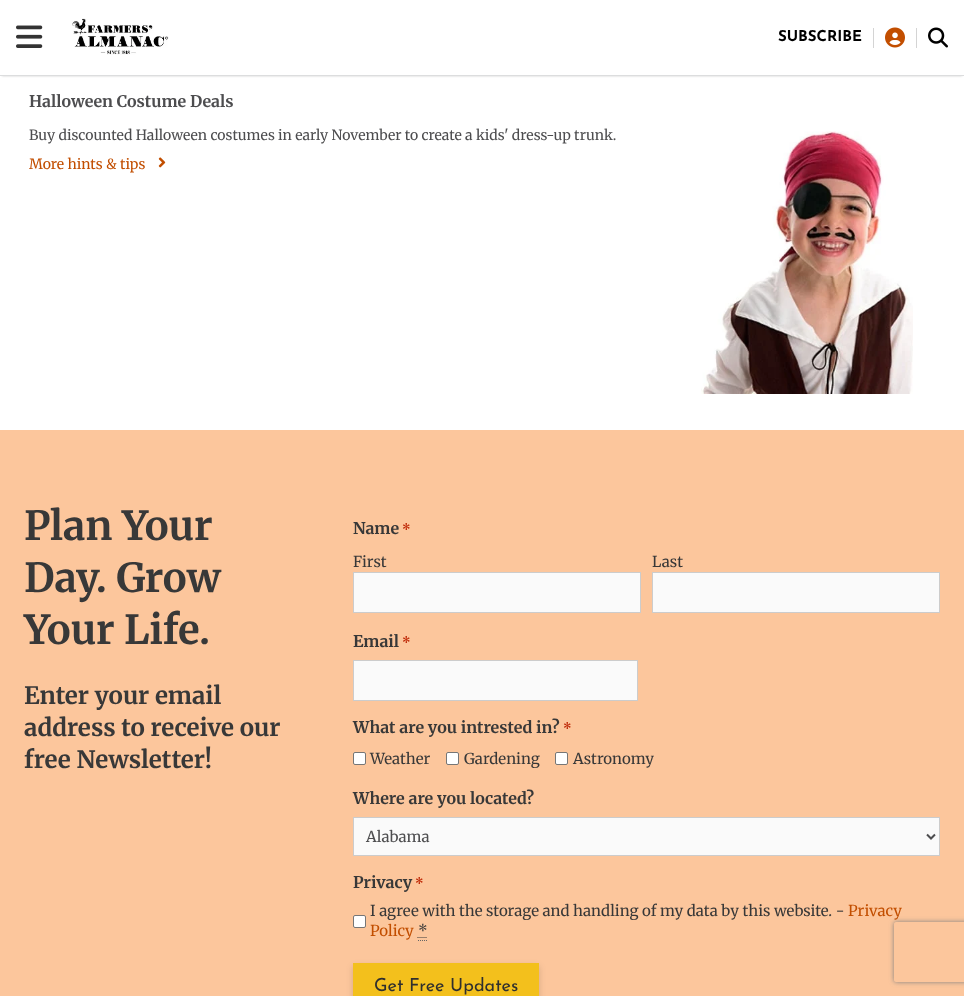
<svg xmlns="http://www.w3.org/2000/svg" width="964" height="996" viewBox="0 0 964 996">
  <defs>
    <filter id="blur1" x="-50%" y="-200%" width="200%" height="500%"><feGaussianBlur stdDeviation="1"/></filter>
    <filter id="blur2" x="-50%" y="-200%" width="200%" height="500%"><feGaussianBlur stdDeviation="3"/></filter>
    <clipPath id="clip1"><path d="M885 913H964V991H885ZM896 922H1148C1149 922 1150 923 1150 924V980C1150 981 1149 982 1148 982H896C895 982 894 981 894 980V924C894 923 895 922 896 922Z" clip-rule="evenodd"/></clipPath>
    <filter id="blur3" x="-50%" y="-200%" width="200%" height="500%"><feGaussianBlur stdDeviation="2.5"/></filter>
  </defs>
  <rect width="100%" height="100%" fill="#ffffff"/>
  <rect x="2" y="4" width="960" height="72" fill="#000000" fill-opacity="0.2" filter="url(#blur1)"/>
  <rect x="0" y="2" width="964" height="73" fill="#ffffff"/>
  <rect x="0" y="75" width="964" height="1" fill="#dcddde"/>
  <image x="16" y="25" width="27" height="23" href="img1.png"/>
  <image x="72" y="18" width="97" height="37" href="img2.png"/>
  <text x="778" y="41" font-family="Josefin Sans" font-size="15" font-weight="bold" fill="#000000">SUBSCRIBE</text>
  <rect x="873" y="28" width="1" height="20" fill="#d4d4d4"/>
  <image x="885" y="27" width="20" height="21" href="img3.png"/>
  <rect x="916" y="28" width="1" height="20" fill="#d4d4d4"/>
  <image x="928" y="27" width="20" height="21" href="img4.png"/>
  <text x="29" y="107" font-family="Merriweather" font-size="16" font-weight="bold" fill="#4d4d4f">Halloween Costume Deals</text>
  <text x="29" y="140" font-family="Merriweather" font-size="14" fill="#4d4d4f">Buy discounted Halloween costumes in early November to create a kids' dress-up trunk.</text>
  <text x="29" y="169" font-family="Merriweather" font-size="14" fill="#c24e00">More hints &amp; tips</text>
  <image x="158" y="157" width="8" height="11" href="img5.png"/>
  <image x="701" y="131" width="212" height="263" href="img6.png"/>
  <rect x="0" y="430" width="964" height="566" fill="#fcc69c"/>
  <text x="24" y="540" font-family="Merriweather" font-size="40" font-weight="bold" fill="#383838">Plan Your</text>
  <text x="24" y="592" font-family="Merriweather" font-size="40" font-weight="bold" fill="#383838">Day. Grow</text>
  <text x="24" y="644" font-family="Merriweather" font-size="40" font-weight="bold" fill="#383838">Your Life.</text>
  <text x="24" y="704" font-family="Merriweather" font-size="24" font-weight="bold" fill="#383838">Enter your email</text>
  <text x="24" y="736" font-family="Merriweather" font-size="24" font-weight="bold" fill="#383838">address to receive our</text>
  <text x="24" y="768" font-family="Merriweather" font-size="24" font-weight="bold" fill="#383838">free Newsletter!</text>
  <text x="353" y="534" font-family="Merriweather" font-size="16" font-weight="bold" fill="#383838">Name</text>
  <text x="402" y="534" font-family="Merriweather" font-size="13" font-weight="bold" fill="#c02b0a">*</text>
  <text x="353" y="567" font-family="Merriweather" font-size="15" fill="#383838">First</text>
  <rect x="353.5" y="572.5" width="287" height="40" fill="#fafafa" stroke="#cccccc"/>
  <text x="652" y="567" font-family="Merriweather" font-size="15" fill="#383838">Last</text>
  <rect x="652.5" y="572.5" width="287" height="40" fill="#fafafa" stroke="#cccccc"/>
  <text x="353" y="647" font-family="Merriweather" font-size="16" font-weight="bold" fill="#383838">Email</text>
  <text x="402" y="647" font-family="Merriweather" font-size="13" font-weight="bold" fill="#c02b0a">*</text>
  <rect x="353.5" y="660.5" width="284" height="40" fill="#fafafa" stroke="#cccccc"/>
  <text x="353" y="733" font-family="Merriweather" font-size="16" font-weight="bold" fill="#383838">What are you intrested in?</text>
  <text x="563" y="733" font-family="Merriweather" font-size="13" font-weight="bold" fill="#c02b0a">*</text>
  <rect x="353.5" y="752.5" width="12" height="12" rx="1.5" fill="#ffffff" stroke="#767676"/>
  <text x="370" y="764" font-family="Merriweather" font-size="15" fill="#383838">Weather</text>
  <rect x="446.5" y="752.5" width="12" height="12" rx="1.5" fill="#ffffff" stroke="#767676"/>
  <text x="464" y="764" font-family="Merriweather" font-size="15" fill="#383838">Gardening</text>
  <rect x="555.5" y="752.5" width="12" height="12" rx="1.5" fill="#ffffff" stroke="#767676"/>
  <text x="573" y="764" font-family="Merriweather" font-size="15" fill="#383838">Astronomy</text>
  <text x="353" y="804" font-family="Merriweather" font-size="16" font-weight="bold" fill="#383838">Where are you located?</text>
  <rect x="353.5" y="817.5" width="586" height="38" fill="#fafafa" stroke="#cccccc"/>
  <path d="M927 834.5L931 838.5L935 834.5" fill="none" stroke="#4d4d4f" stroke-width="2"/>
  <text x="366" y="842" font-family="Merriweather" font-size="15" fill="#4d4d4f">Alabama</text>
  <text x="353" y="888" font-family="Merriweather" font-size="16" font-weight="bold" fill="#383838">Privacy</text>
  <text x="415" y="888" font-family="Merriweather" font-size="13" font-weight="bold" fill="#c02b0a">*</text>
  <rect x="353.5" y="915.5" width="12" height="12" rx="1.5" fill="#ffffff" stroke="#767676"/>
  <text x="370" y="916" font-family="Merriweather" font-size="15" fill="#383838">I agree with the storage and handling of my data by this website. -</text>
  <text x="848" y="916" font-family="Merriweather" font-size="15" fill="#c24e00">Privacy</text>
  <text x="370" y="936" font-family="Merriweather" font-size="15" fill="#c24e00">Policy</text>
  <text x="418" y="936" font-family="Merriweather" font-size="15" fill="#383838">*</text>
  <path d="M418 940.5H427" fill="none" stroke="#666666" stroke-dasharray="1 1"/>
  <path d="M417.5 937.5H427" fill="none" stroke="#383838" stroke-dasharray="1 1"/>
  <rect x="353" y="966" width="186" height="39" fill="#000000" fill-opacity="0.16" filter="url(#blur2)"/>
  <rect x="353" y="963" width="186" height="33" fill="#f3c01c"/>
  <text x="374" y="991" font-family="Josefin Sans" font-size="18" fill="#2f2f2f">Get Free Updates</text>
  <g clip-path="url(#clip1)">
    <rect x="894" y="922" width="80" height="60" rx="2" fill="#808080" filter="url(#blur3)"/>
  </g>
</svg>
